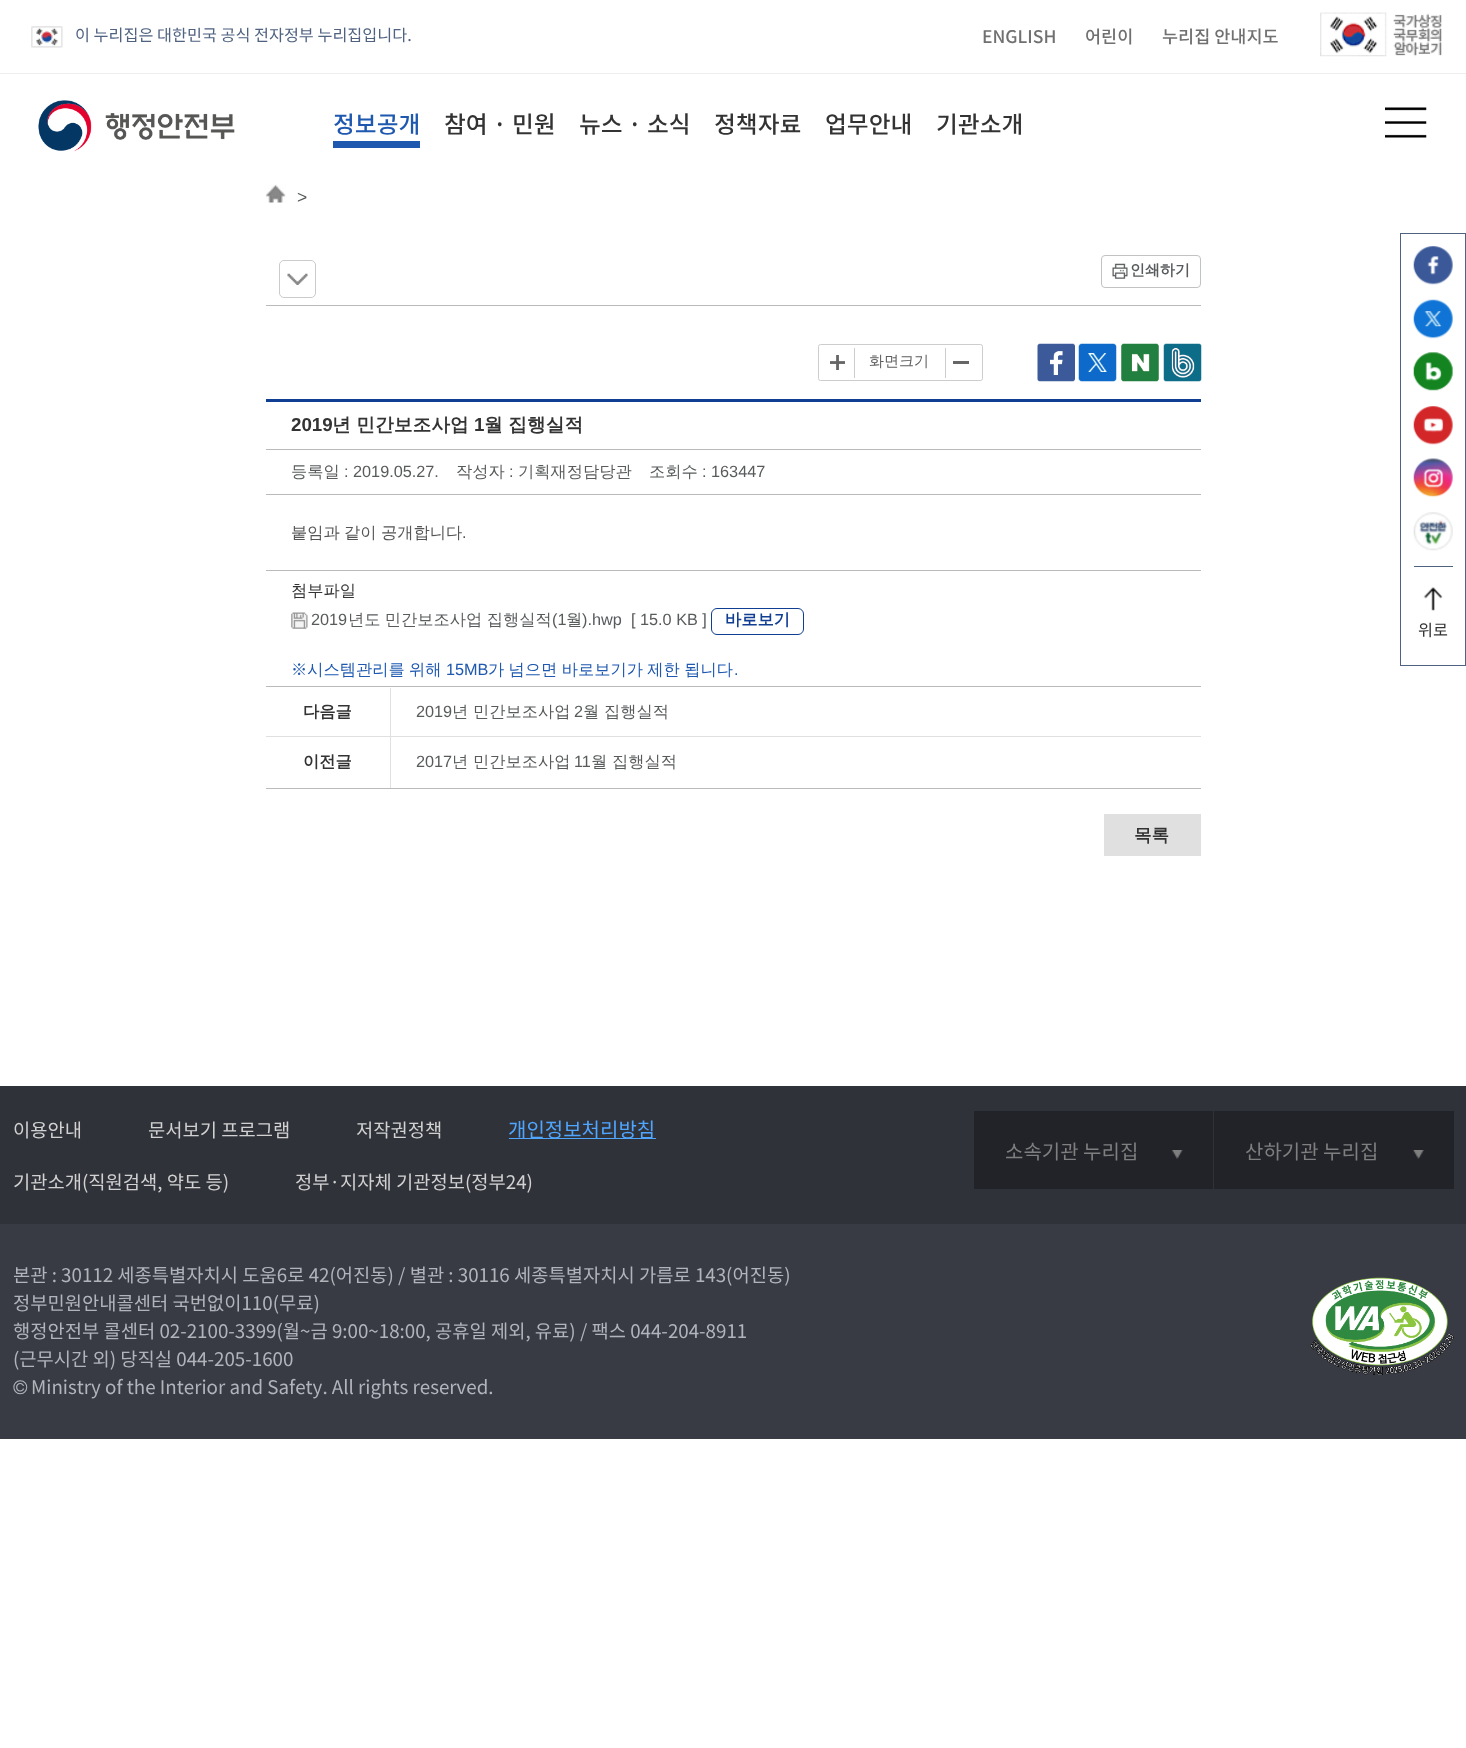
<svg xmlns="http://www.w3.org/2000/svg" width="1466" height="1748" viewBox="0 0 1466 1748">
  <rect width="100%" height="100%" fill="#ffffff"/>
  <rect x="0" y="73" width="1466" height="1" fill="#eeeeee"/>
  <image x="31" y="26" width="32" height="22" href="img1.png"/>
  <text x="75" y="41" font-family="Noto Sans KR" font-size="16.25" fill="#4f6280">이 누리집은 대한민국 공식 전자정부 누리집입니다.</text>
  <text x="982" y="43" font-family="Noto Sans KR" font-size="17.5" font-weight="500" fill="#707070">ENGLISH</text>
  <text x="1085" y="43" font-family="Noto Sans KR" font-size="17.5" font-weight="500" fill="#707070">어린이</text>
  <text x="1162" y="43" font-family="Noto Sans KR" font-size="17.5" font-weight="500" fill="#707070">누리집 안내지도</text>
  <image x="1320" y="12" width="122" height="45" href="img2.png"/>
  <rect x="1400.5" y="233.5" width="65" height="432" fill="none" stroke="#4f6280"/>
  <image x="1413" y="246" width="40" height="39" href="img3.png"/>
  <image x="1413" y="299" width="40" height="40" href="img4.png"/>
  <image x="1413" y="352" width="40" height="39" href="img5.png"/>
  <image x="1413" y="406" width="40" height="39" href="img6.png"/>
  <image x="1413" y="458" width="40" height="39" href="img7.png"/>
  <image x="1413" y="512" width="40" height="39" href="img8.png"/>
  <rect x="1414" y="566" width="39" height="1" fill="#4f6280"/>
  <image x="1423" y="587" width="20" height="24" href="img9.png"/>
  <text x="1418" y="636" font-family="Noto Sans KR" font-size="16.25" fill="#333333">위로</text>
  <image x="38" y="100" width="197" height="52" href="img10.png"/>
  <text x="333" y="133" font-family="Noto Sans KR" font-size="23.75" font-weight="500" fill="#1e58af">정보공개</text>
  <rect x="333" y="141" width="87" height="7" fill="#1e58af"/>
  <text x="444" y="133" font-family="Noto Sans KR" font-size="23.75" font-weight="500" fill="#333333">참여 · 민원</text>
  <text x="579" y="133" font-family="Noto Sans KR" font-size="23.75" font-weight="500" fill="#333333">뉴스 · 소식</text>
  <text x="714" y="133" font-family="Noto Sans KR" font-size="23.75" font-weight="500" fill="#333333">정책자료</text>
  <text x="825" y="133" font-family="Noto Sans KR" font-size="23.75" font-weight="500" fill="#333333">업무안내</text>
  <text x="936" y="133" font-family="Noto Sans KR" font-size="23.75" font-weight="500" fill="#333333">기관소개</text>
  <image x="1385" y="107" width="42" height="31" href="img11.png"/>
  <image x="265" y="184" width="21" height="19" href="img12.png"/>
  <text x="297" y="203" font-family="Liberation Sans" font-size="17.5" fill="#585b5c">&gt;</text>
  <rect x="266" y="305" width="935" height="1" fill="#bababa"/>
  <image x="287" y="273" width="21" height="12" href="img13.png"/>
  <rect x="279.5" y="260.5" width="36" height="37" rx="4.5" fill="none" stroke="#cbcbcb"/>
  <image x="1112" y="263" width="16" height="16" href="img14.png"/>
  <rect x="1101.5" y="255.5" width="99" height="32" rx="3.5" fill="none" stroke="#c1c2c3"/>
  <text x="1130" y="275" font-family="WenQuanYi Zen Hei" font-size="15" font-weight="bold" fill="#585b5c">인쇄하기</text>
  <rect x="818.5" y="344.5" width="164" height="36" rx="2" fill="none" stroke="#cdcdcd"/>
  <image x="830" y="355" width="15" height="15" href="img15.png"/>
  <rect x="854" y="348" width="1" height="30" fill="#cdcdcd"/>
  <rect x="953" y="361" width="16" height="3" fill="#666666"/>
  <rect x="945" y="348" width="1" height="30" fill="#cdcdcd"/>
  <text x="869" y="366" font-family="WenQuanYi Zen Hei" font-size="15" font-weight="500" fill="#5e5e5e">화면크기</text>
  <image x="1037" y="343" width="38" height="39" href="img16.png"/>
  <image x="1078" y="343" width="39" height="39" href="img17.png"/>
  <image x="1121" y="343" width="38" height="39" href="img18.png"/>
  <image x="1163" y="343" width="39" height="39" href="img19.png"/>
  <rect x="266" y="399" width="935" height="3" fill="#103e93"/>
  <text x="291" y="431" font-family="Liberation Sans" font-size="18.75" font-weight="bold" fill="#333333">2019</text>
  <text x="332" y="431" font-family="WenQuanYi Zen Hei" font-size="18.75" font-weight="bold" fill="#333333">년 민간보조사업</text>
  <text x="474" y="431" font-family="Liberation Sans" font-size="18.75" font-weight="bold" fill="#333333">1</text>
  <text x="484" y="431" font-family="WenQuanYi Zen Hei" font-size="18.75" font-weight="bold" fill="#333333">월 집행실적</text>
  <rect x="266" y="449" width="935" height="1" fill="#bababa"/>
  <text x="291" y="477" font-family="WenQuanYi Zen Hei" font-size="16.25" font-weight="500" fill="#585b5c">등록일</text>
  <text x="344" y="477" font-family="Liberation Sans" font-size="16.25" fill="#585b5c">: 2019.05.27.</text>
  <text x="456" y="477" font-family="WenQuanYi Zen Hei" font-size="16.25" font-weight="500" fill="#585b5c">작성자</text>
  <text x="509" y="477" font-family="Liberation Sans" font-size="16.25" fill="#585b5c">:</text>
  <text x="518" y="477" font-family="WenQuanYi Zen Hei" font-size="16.25" font-weight="500" fill="#585b5c">기획재정담당관</text>
  <text x="649" y="477" font-family="WenQuanYi Zen Hei" font-size="16.25" font-weight="500" fill="#585b5c">조회수</text>
  <text x="702" y="477" font-family="Liberation Sans" font-size="16.25" fill="#585b5c">: 163447</text>
  <rect x="266" y="494" width="935" height="1" fill="#bababa"/>
  <text x="291" y="538" font-family="WenQuanYi Zen Hei" font-size="16.25" font-weight="500" fill="#555555">붙임과</text>
  <text x="344" y="538" font-family="WenQuanYi Zen Hei" font-size="16.25" font-weight="500" fill="#555555">같이</text>
  <text x="381" y="538" font-family="WenQuanYi Zen Hei" font-size="16.25" font-weight="500" fill="#555555">공개합니다</text>
  <text x="462" y="538" font-family="Liberation Sans" font-size="16.25" fill="#555555">.</text>
  <rect x="266" y="570" width="935" height="1" fill="#bababa"/>
  <text x="291" y="596" font-family="WenQuanYi Zen Hei" font-size="16.25" font-weight="500" fill="#333333">첨부파일</text>
  <image x="291" y="612" width="17" height="17" href="img20.png"/>
  <text x="311" y="625" font-family="Liberation Sans" font-size="16.25" fill="#585b5c">2019</text>
  <text x="348" y="625" word-spacing="-0.5" font-family="WenQuanYi Zen Hei" font-size="16.25" font-weight="500" fill="#585b5c">년도 민간보조사업 집행실적</text>
  <text x="552" y="625" font-family="Liberation Sans" font-size="16.25" fill="#585b5c">(1</text>
  <text x="566" y="625" font-family="WenQuanYi Zen Hei" font-size="16.25" font-weight="500" fill="#585b5c">월</text>
  <text x="582" y="625" font-family="Liberation Sans" font-size="16.25" fill="#585b5c">).hwp</text>
  <text x="631" y="625" font-family="Liberation Sans" font-size="16.25" fill="#585b5c">[ 15.0 KB ]</text>
  <rect x="711.5" y="608.5" width="92" height="26" rx="5.5" fill="none" stroke="#103e93"/>
  <text x="725" y="625" font-family="WenQuanYi Zen Hei" font-size="16.25" font-weight="bold" fill="#103e93">바로보기</text>
  <text x="291" y="675" word-spacing="-0.5" font-family="WenQuanYi Zen Hei" font-size="16.25" font-weight="500" fill="#1e58af">※시스템관리를 위해</text>
  <text x="446" y="675" font-family="Liberation Sans" font-size="16.25" fill="#1e58af">15MB</text>
  <text x="488" y="675" word-spacing="-0.5" font-family="WenQuanYi Zen Hei" font-size="16.25" font-weight="500" fill="#1e58af">가 넘으면 바로보기가 제한 됩니다</text>
  <text x="734" y="675" font-family="Liberation Sans" font-size="16.25" fill="#1e58af">.</text>
  <rect x="266" y="686" width="935" height="1" fill="#bababa"/>
  <rect x="266" y="788" width="935" height="1" fill="#bababa"/>
  <rect x="390" y="688" width="1" height="100" fill="#e0e0e0"/>
  <rect x="266" y="736" width="935" height="1" fill="#e0e0e0"/>
  <text x="303" y="717" font-family="WenQuanYi Zen Hei" font-size="16.25" font-weight="bold" fill="#333333">다음글</text>
  <text x="416" y="717" font-family="Liberation Sans" font-size="16.25" fill="#585b5c">2019</text>
  <text x="452" y="717" font-family="WenQuanYi Zen Hei" font-size="16.25" font-weight="500" fill="#585b5c">년 민간보조사업</text>
  <text x="574" y="717" font-family="Liberation Sans" font-size="16.25" fill="#585b5c">2</text>
  <text x="583" y="717" font-family="WenQuanYi Zen Hei" font-size="16.25" font-weight="500" fill="#585b5c">월 집행실적</text>
  <text x="303" y="767" font-family="WenQuanYi Zen Hei" font-size="16.25" font-weight="bold" fill="#333333">이전글</text>
  <text x="416" y="767" font-family="Liberation Sans" font-size="16.25" fill="#585b5c">2017</text>
  <text x="452" y="767" font-family="WenQuanYi Zen Hei" font-size="16.25" font-weight="500" fill="#585b5c">년 민간보조사업</text>
  <text x="574" y="767" font-family="Liberation Sans" font-size="16.25" fill="#585b5c">11</text>
  <text x="591" y="767" font-family="WenQuanYi Zen Hei" font-size="16.25" font-weight="500" fill="#585b5c">월 집행실적</text>
  <rect x="1104" y="814" width="97" height="42" fill="#e0e0e0"/>
  <text x="1134" y="841" font-family="WenQuanYi Zen Hei" font-size="17.5" font-weight="bold" fill="#333333">목록</text>
  <rect x="0" y="1086" width="1466" height="138" fill="#30323a"/>
  <text x="13" y="1137" font-family="Noto Sans KR" font-size="18.75" fill="#d1d1d1">이용안내</text>
  <text x="148" y="1137" font-family="Noto Sans KR" font-size="18.75" fill="#d1d1d1">문서보기 프로그램</text>
  <text x="356" y="1137" font-family="Noto Sans KR" font-size="18.75" fill="#d1d1d1">저작권정책</text>
  <rect x="509" y="1138" width="147" height="1" fill="#4fa6ff"/>
  <text x="508" y="1137" font-family="Noto Sans KR" font-size="20" fill="#4fa6ff">개인정보처리방침</text>
  <text x="13" y="1189" font-family="Noto Sans KR" font-size="18.75" fill="#d1d1d1">기관소개(직원검색, 약도 등)</text>
  <text x="295" y="1189" font-family="Noto Sans KR" font-size="18.75" fill="#d1d1d1">정부·지자체 기관정보(정부24)</text>
  <rect x="974" y="1111" width="239" height="78" fill="#212329"/>
  <text x="1005" y="1159" font-family="Noto Sans KR" font-size="20" fill="#7f7f7f">소속기관 누리집</text>
  <image x="1172" y="1150" width="11" height="9" href="img21.png"/>
  <rect x="1214" y="1111" width="240" height="78" fill="#212329"/>
  <text x="1245" y="1159" font-family="Noto Sans KR" font-size="20" fill="#7f7f7f">산하기관 누리집</text>
  <image x="1413" y="1150" width="11" height="9" href="img22.png"/>
  <rect x="0" y="1224" width="1466" height="215" fill="#393b44"/>
  <text x="13" y="1282" font-family="Noto Sans KR" font-size="18.75" fill="#b2b4bc">본관 : 30112 세종특별자치시 도움6로 42(어진동) / 별관 : 30116 세종특별자치시 가름로 143(어진동)</text>
  <image x="1310" y="1277" width="144" height="98" href="img23.png"/>
  <text x="13" y="1310" font-family="Noto Sans KR" font-size="18.75" fill="#b2b4bc">정부민원안내콜센터 국번없이110(무료)</text>
  <text x="13" y="1338" font-family="Noto Sans KR" font-size="18.75" fill="#b2b4bc">행정안전부 콜센터 02-2100-3399(월~금 9:00~18:00, 공휴일 제외, 유료) / 팩스 044-204-8911</text>
  <text x="13" y="1366" font-family="Noto Sans KR" font-size="18.75" fill="#b2b4bc">(근무시간 외) 당직실 044-205-1600</text>
  <text x="13" y="1394" font-family="Dotum" font-size="18.75" fill="#b2b4bc">©</text>
  <text x="31" y="1394" font-family="Noto Sans KR" font-size="18.75" fill="#b2b4bc">Ministry of the Interior and Safety. All rights reserved.</text>
</svg>
